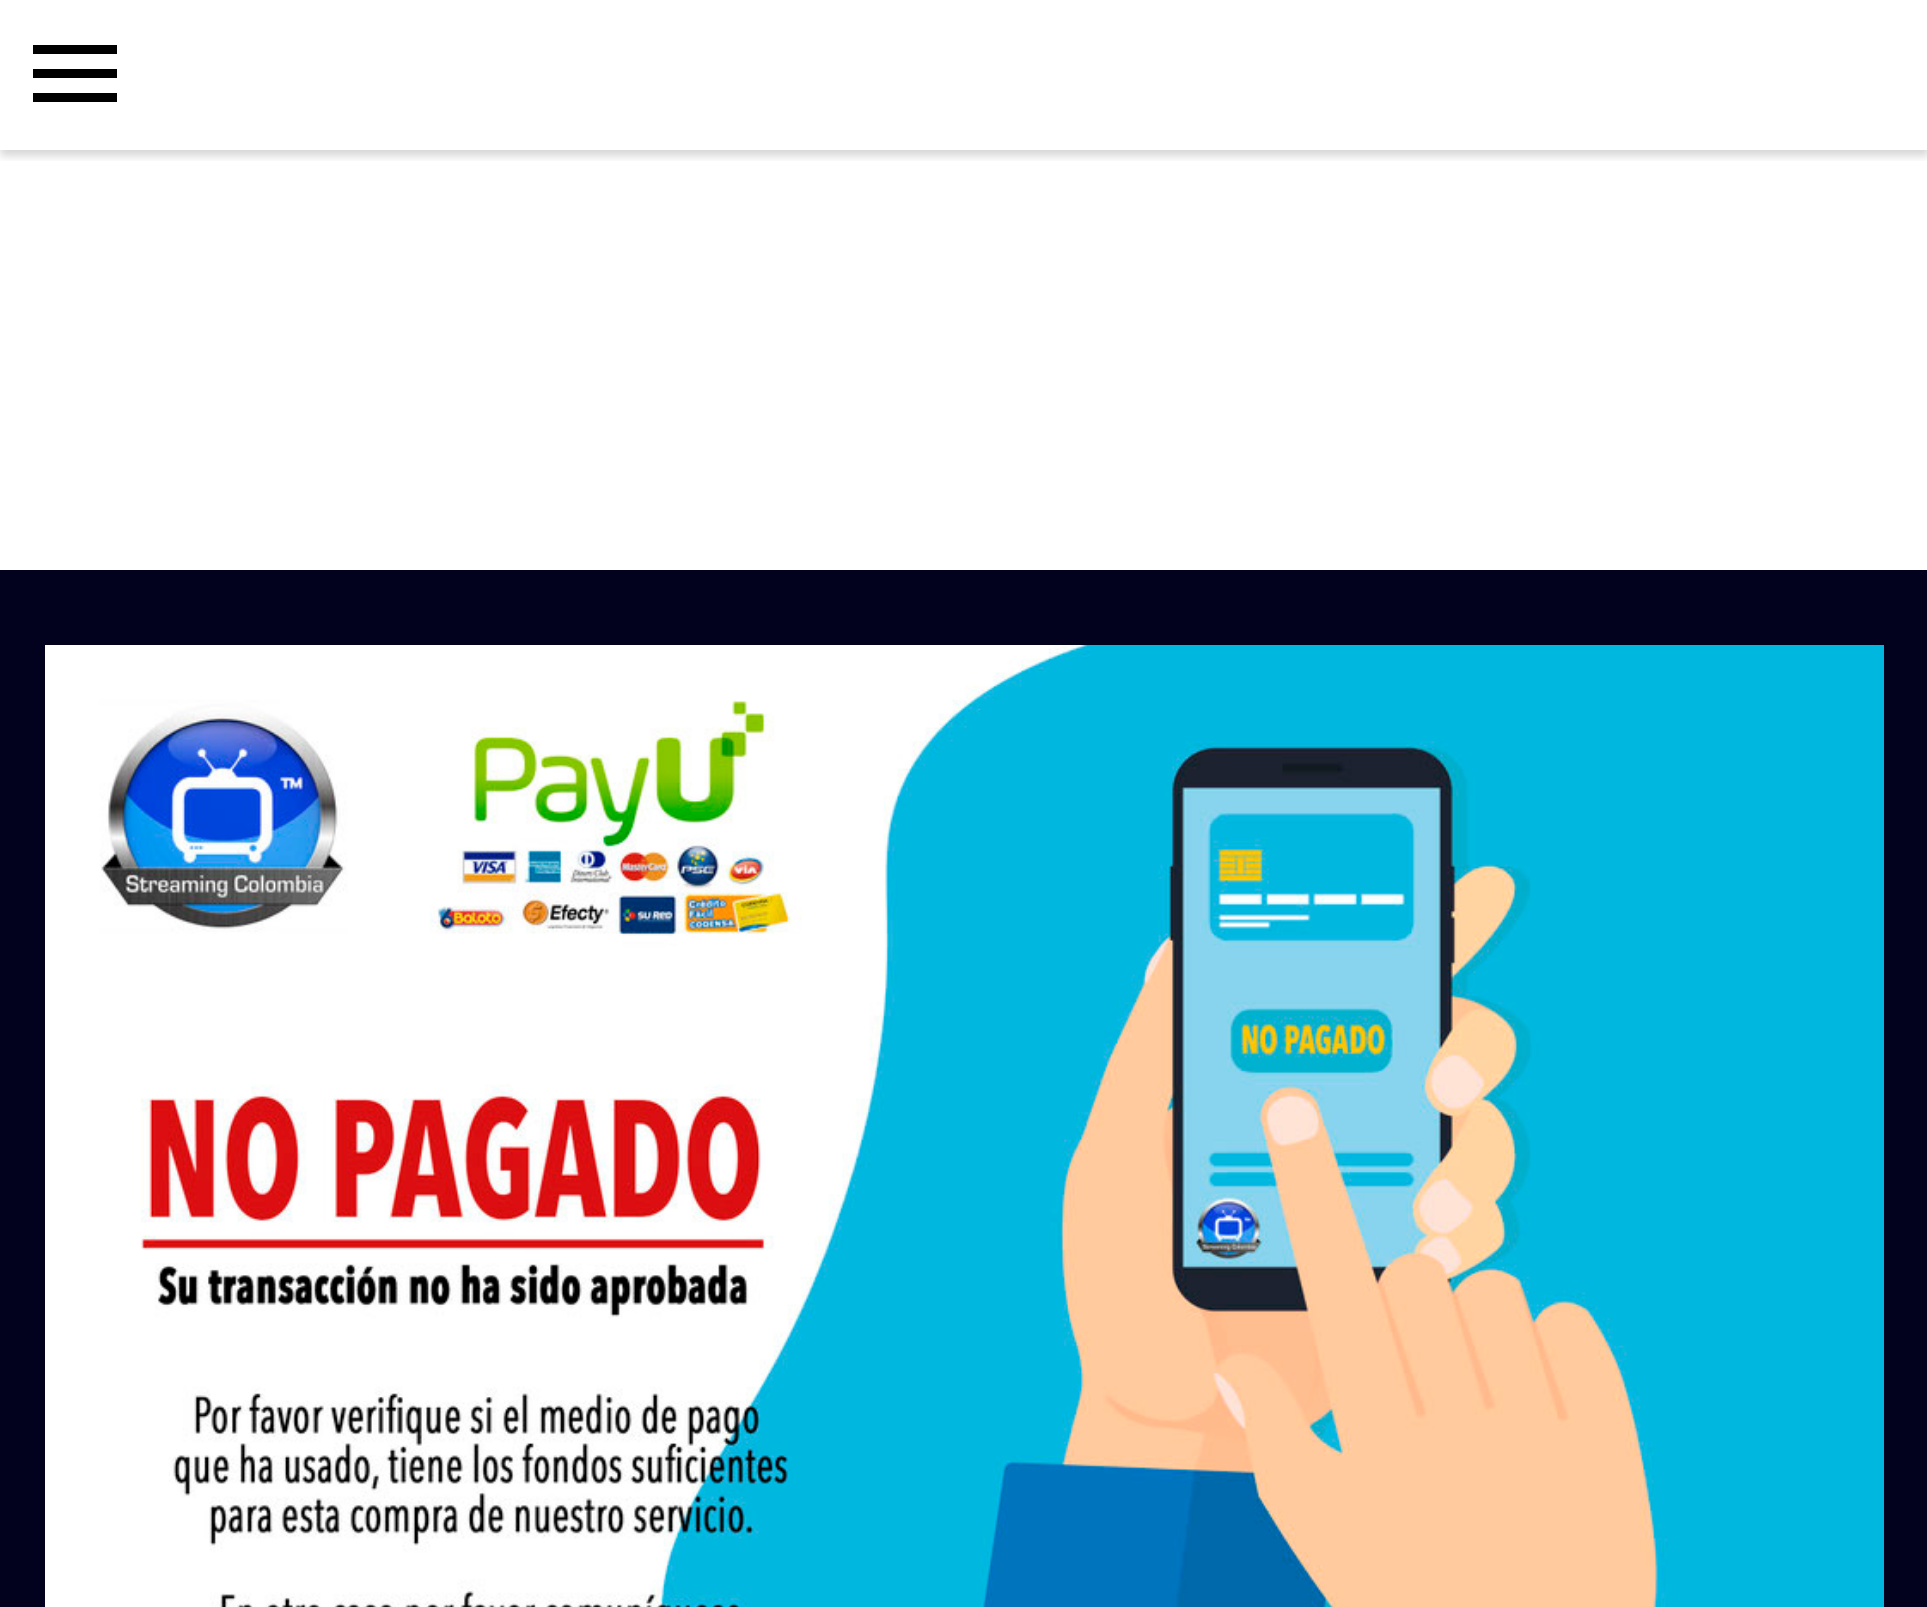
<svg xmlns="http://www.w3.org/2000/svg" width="1927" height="1607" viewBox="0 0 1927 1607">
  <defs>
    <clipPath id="clip1"><rect x="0" y="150" width="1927" height="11"/></clipPath>
    <filter id="blur1" x="-50%" y="-200%" width="200%" height="500%"><feGaussianBlur stdDeviation="4.5"/></filter>
  </defs>
  <rect width="100%" height="100%" fill="#ffffff"/>
  <g clip-path="url(#clip1)">
    <rect x="0" y="6" width="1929" height="150" fill="#000000" fill-opacity="0.16" filter="url(#blur1)"/>
  </g>
  <rect x="33" y="69" width="84" height="9" fill="#000000"/>
  <rect x="33" y="45" width="84" height="9" fill="#000000"/>
  <rect x="33" y="93" width="84" height="9" fill="#000000"/>
  <rect x="0" y="570" width="1927" height="1037" fill="#03021e"/>
  <image x="45" y="645" width="1839" height="962" href="img1.png"/>
</svg>
